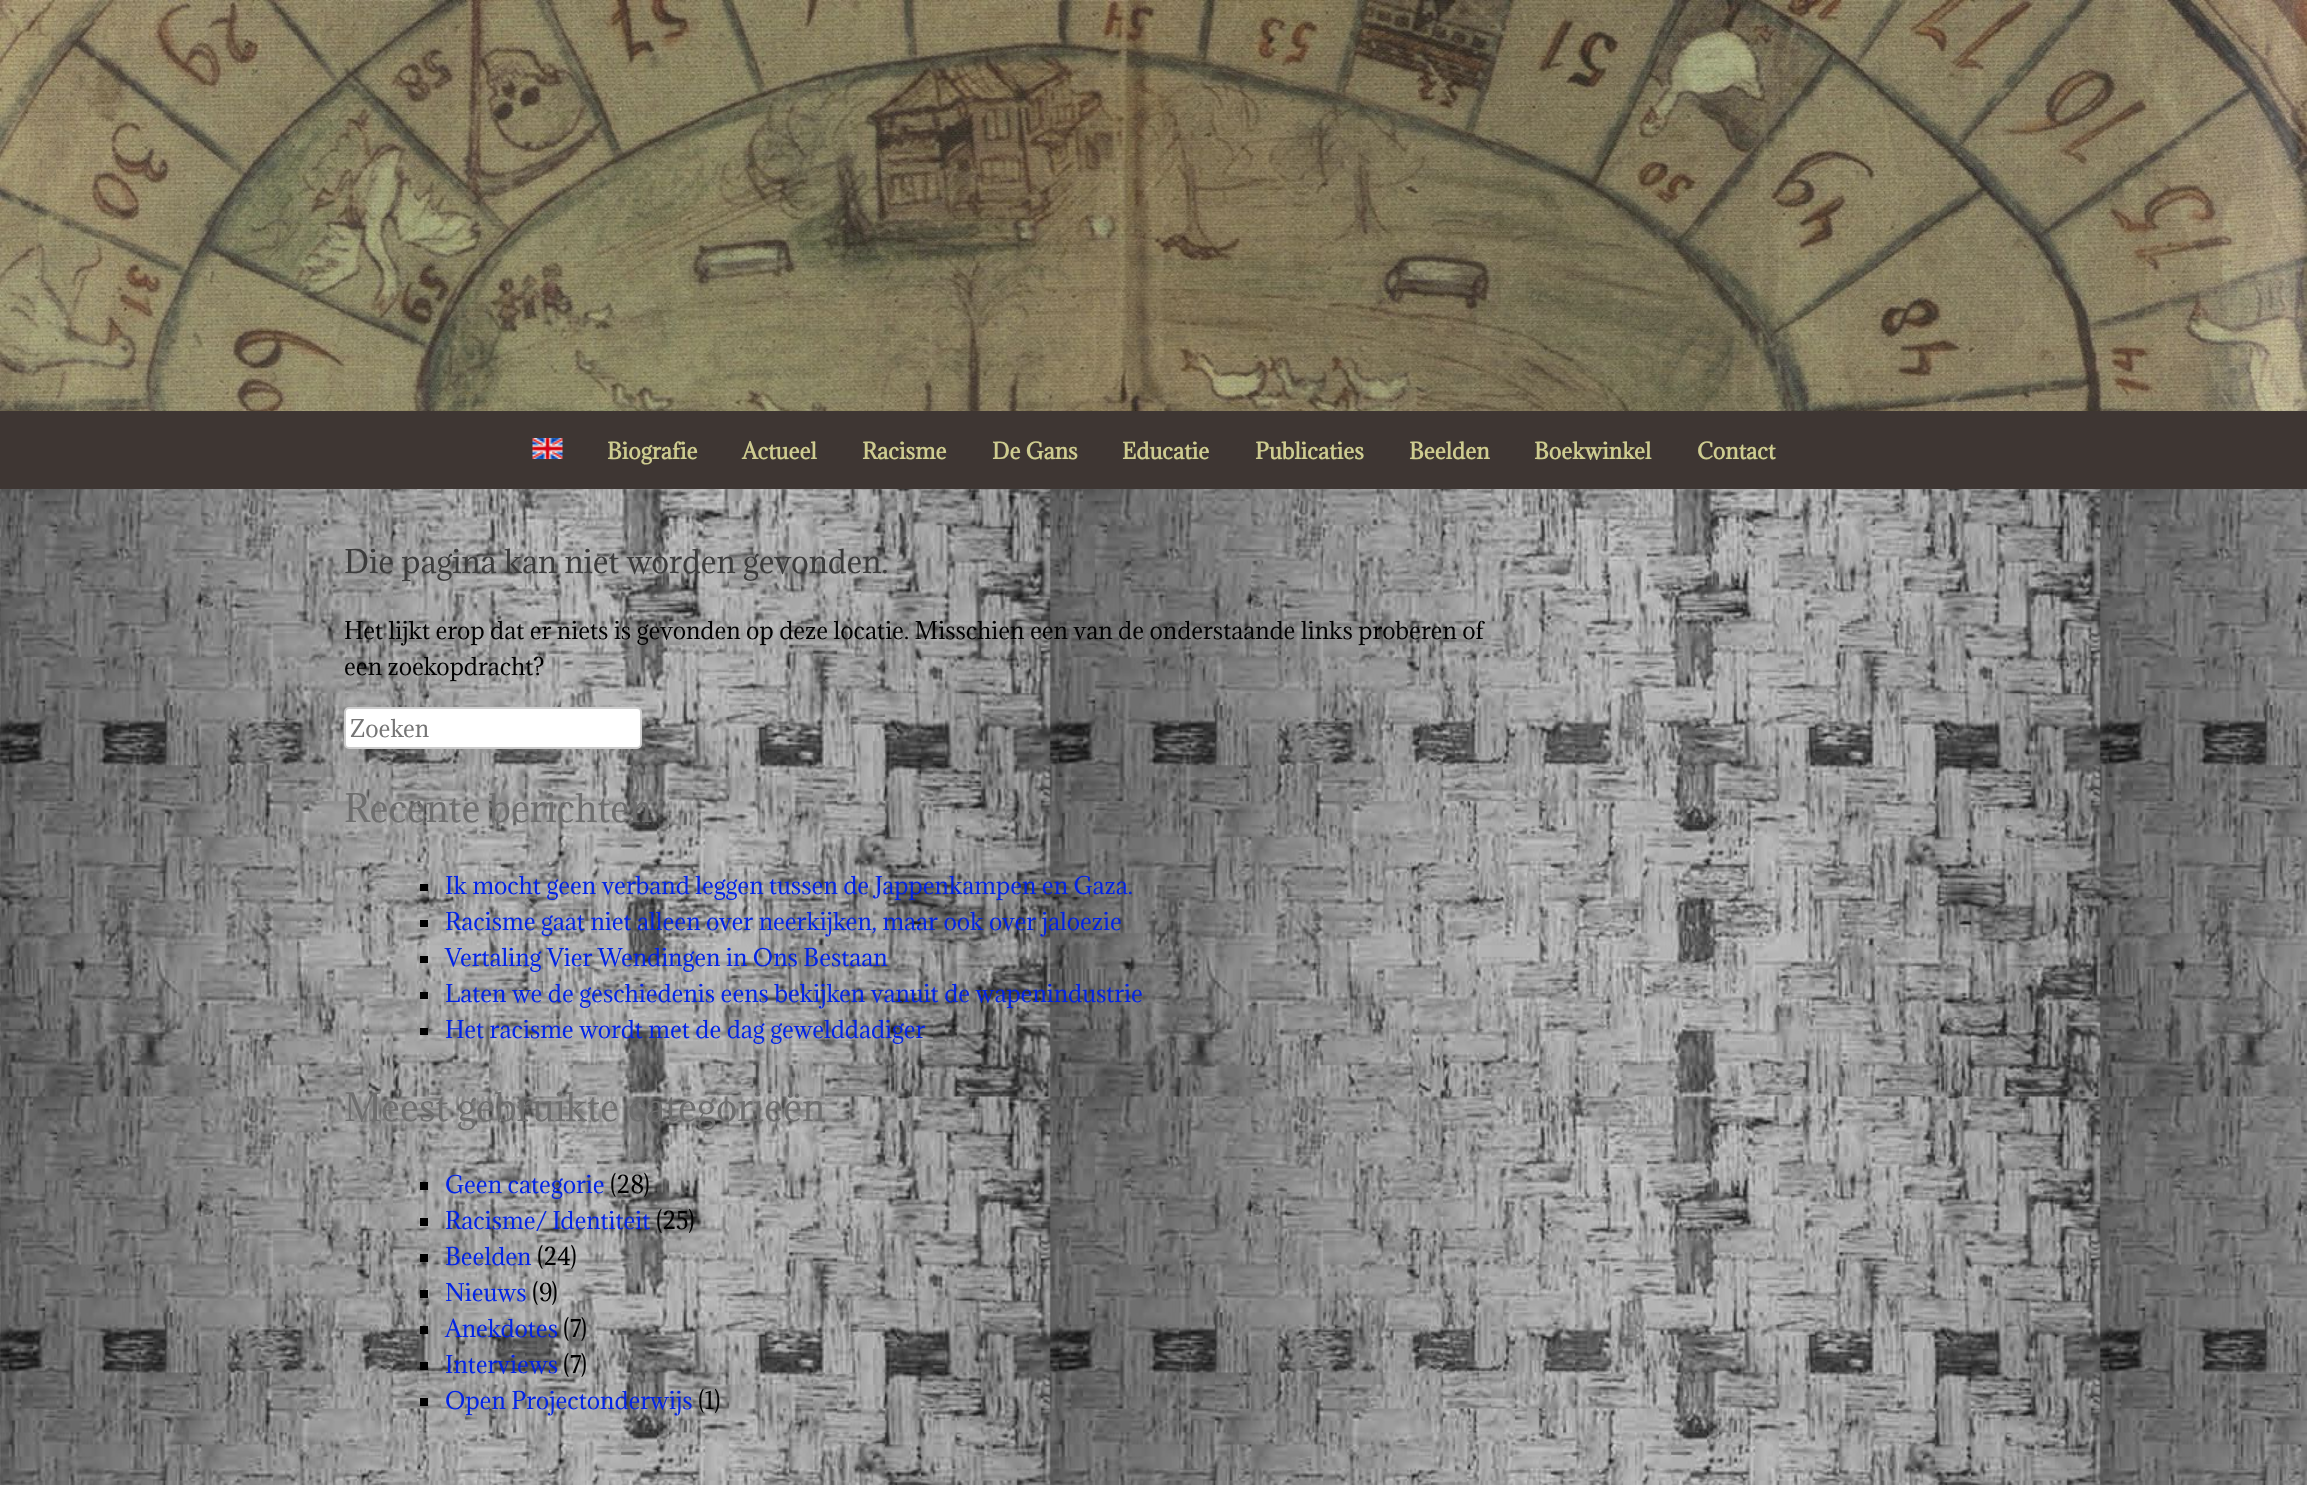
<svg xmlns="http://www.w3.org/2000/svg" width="2307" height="1485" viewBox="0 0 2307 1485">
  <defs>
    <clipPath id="clip1"><path d="M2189 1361H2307V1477H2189ZM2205 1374H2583C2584.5 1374 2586 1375.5 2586 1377V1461C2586 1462.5 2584.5 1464 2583 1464H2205C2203.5 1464 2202 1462.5 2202 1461V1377C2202 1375.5 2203.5 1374 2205 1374Z" clip-rule="evenodd"/></clipPath>
    <filter id="blur1" x="-50%" y="-200%" width="200%" height="500%"><feGaussianBlur stdDeviation="4"/></filter>
  </defs>
  <rect width="100%" height="100%" fill="#ffffff"/>
  <image x="0" y="0" width="2307" height="411" href="img1.png"/>
  <rect x="0" y="411" width="2307" height="78" fill="#3e3633"/>
  <image x="532" y="438" width="31" height="21" href="img2.png"/>
  <text x="607" y="459" font-family="Adamina" font-size="21" font-weight="bold" fill="#cecc90">Biografie</text>
  <text x="742" y="459" font-family="Adamina" font-size="21" font-weight="bold" fill="#cecc90">Actueel</text>
  <text x="862" y="459" font-family="Adamina" font-size="21" font-weight="bold" fill="#cecc90">Racisme</text>
  <text x="992" y="459" font-family="Adamina" font-size="21" font-weight="bold" fill="#cecc90">De Gans</text>
  <text x="1122" y="459" font-family="Adamina" font-size="21" font-weight="bold" fill="#cecc90">Educatie</text>
  <text x="1255" y="459" font-family="Adamina" font-size="21" font-weight="bold" fill="#cecc90">Publicaties</text>
  <text x="1409" y="459" font-family="Adamina" font-size="21" font-weight="bold" fill="#cecc90">Beelden</text>
  <text x="1534" y="459" font-family="Adamina" font-size="21" font-weight="bold" fill="#cecc90">Boekwinkel</text>
  <text x="1697" y="459" font-family="Adamina" font-size="21" font-weight="bold" fill="#cecc90">Contact</text>
  <image x="0" y="489" width="2307" height="996" href="img3.png"/>
  <text x="344" y="573" font-family="Adamina" font-size="30" fill="#3b3b3b">Die pagina kan niet worden gevonden.</text>
  <text x="344" y="639" font-family="Adamina" font-size="22.5" fill="#000000">Het lijkt erop dat er niets is gevonden op deze locatie. Misschien een van de onderstaande links proberen of</text>
  <text x="344" y="675" font-family="Adamina" font-size="22.5" fill="#000000">een zoekopdracht?</text>
  <rect x="345" y="708" width="296" height="40" rx="4" fill="#ffffff" stroke="#cccccc" stroke-width="2"/>
  <text x="350" y="737" font-family="Adamina" font-size="22.5" fill="#757575">Zoeken</text>
  <text x="344" y="822" font-family="Adamina" font-size="36" fill="#6d6d6d">Recente berichten</text>
  <rect x="420" y="884" width="8" height="7" fill="#000000"/>
  <text x="445" y="894" font-family="Adamina" font-size="22.5" fill="#0022e8">Ik mocht geen verband leggen tussen de Jappenkampen en Gaza.</text>
  <rect x="420" y="920" width="8" height="7" fill="#000000"/>
  <text x="445" y="930" font-family="Adamina" font-size="22.5" fill="#0022e8">Racisme gaat niet alleen over neerkijken, maar ook over jaloezie</text>
  <rect x="420" y="956" width="8" height="7" fill="#000000"/>
  <text x="445" y="966" font-family="Adamina" font-size="22.5" fill="#0022e8">Vertaling Vier Wendingen in Ons Bestaan</text>
  <rect x="420" y="992" width="8" height="7" fill="#000000"/>
  <text x="445" y="1002" font-family="Adamina" font-size="22.5" fill="#0022e8">Laten we de geschiedenis eens bekijken vanuit de wapenindustrie</text>
  <rect x="420" y="1028" width="8" height="7" fill="#000000"/>
  <text x="445" y="1038" font-family="Adamina" font-size="22.5" fill="#0022e8">Het racisme wordt met de dag gewelddadiger</text>
  <text x="344" y="1121" font-family="Adamina" font-size="36" fill="#6d6d6d">Meest gebruikte categorieën</text>
  <rect x="420" y="1182" width="8" height="8" fill="#000000"/>
  <text x="445" y="1193" font-family="Adamina" font-size="22.5" fill="#0022e8">Geen categorie</text>
  <text x="610" y="1193" font-family="Adamina" font-size="22.5" fill="#000000">(28)</text>
  <rect x="420" y="1218" width="8" height="8" fill="#000000"/>
  <text x="445" y="1229" font-family="Adamina" font-size="22.5" fill="#0022e8">Racisme/ Identiteit</text>
  <text x="656" y="1229" font-family="Adamina" font-size="22.5" fill="#000000">(25)</text>
  <rect x="420" y="1254" width="8" height="8" fill="#000000"/>
  <text x="445" y="1265" font-family="Adamina" font-size="22.5" fill="#0022e8">Beelden</text>
  <text x="537" y="1265" font-family="Adamina" font-size="22.5" fill="#000000">(24)</text>
  <rect x="420" y="1290" width="8" height="8" fill="#000000"/>
  <text x="445" y="1301" font-family="Adamina" font-size="22.5" fill="#0022e8">Nieuws</text>
  <text x="532" y="1301" font-family="Adamina" font-size="22.5" fill="#000000">(9)</text>
  <rect x="420" y="1326" width="8" height="8" fill="#000000"/>
  <text x="445" y="1337" font-family="Adamina" font-size="22.5" fill="#0022e8">Anekdotes</text>
  <text x="563" y="1337" font-family="Adamina" font-size="22.5" fill="#000000">(7)</text>
  <rect x="420" y="1362" width="8" height="8" fill="#000000"/>
  <text x="445" y="1373" font-family="Adamina" font-size="22.5" fill="#0022e8">Interviews</text>
  <text x="563" y="1373" font-family="Adamina" font-size="22.5" fill="#000000">(7)</text>
  <rect x="420" y="1398" width="8" height="8" fill="#000000"/>
  <text x="445" y="1409" font-family="Adamina" font-size="22.5" fill="#0022e8">Open Projectonderwijs</text>
  <text x="698" y="1409" font-family="Adamina" font-size="22.5" fill="#000000">(1)</text>
  <g clip-path="url(#clip1)">
    <rect x="2202" y="1374" width="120" height="90" rx="3" fill="#808080" filter="url(#blur1)"/>
  </g>
</svg>
